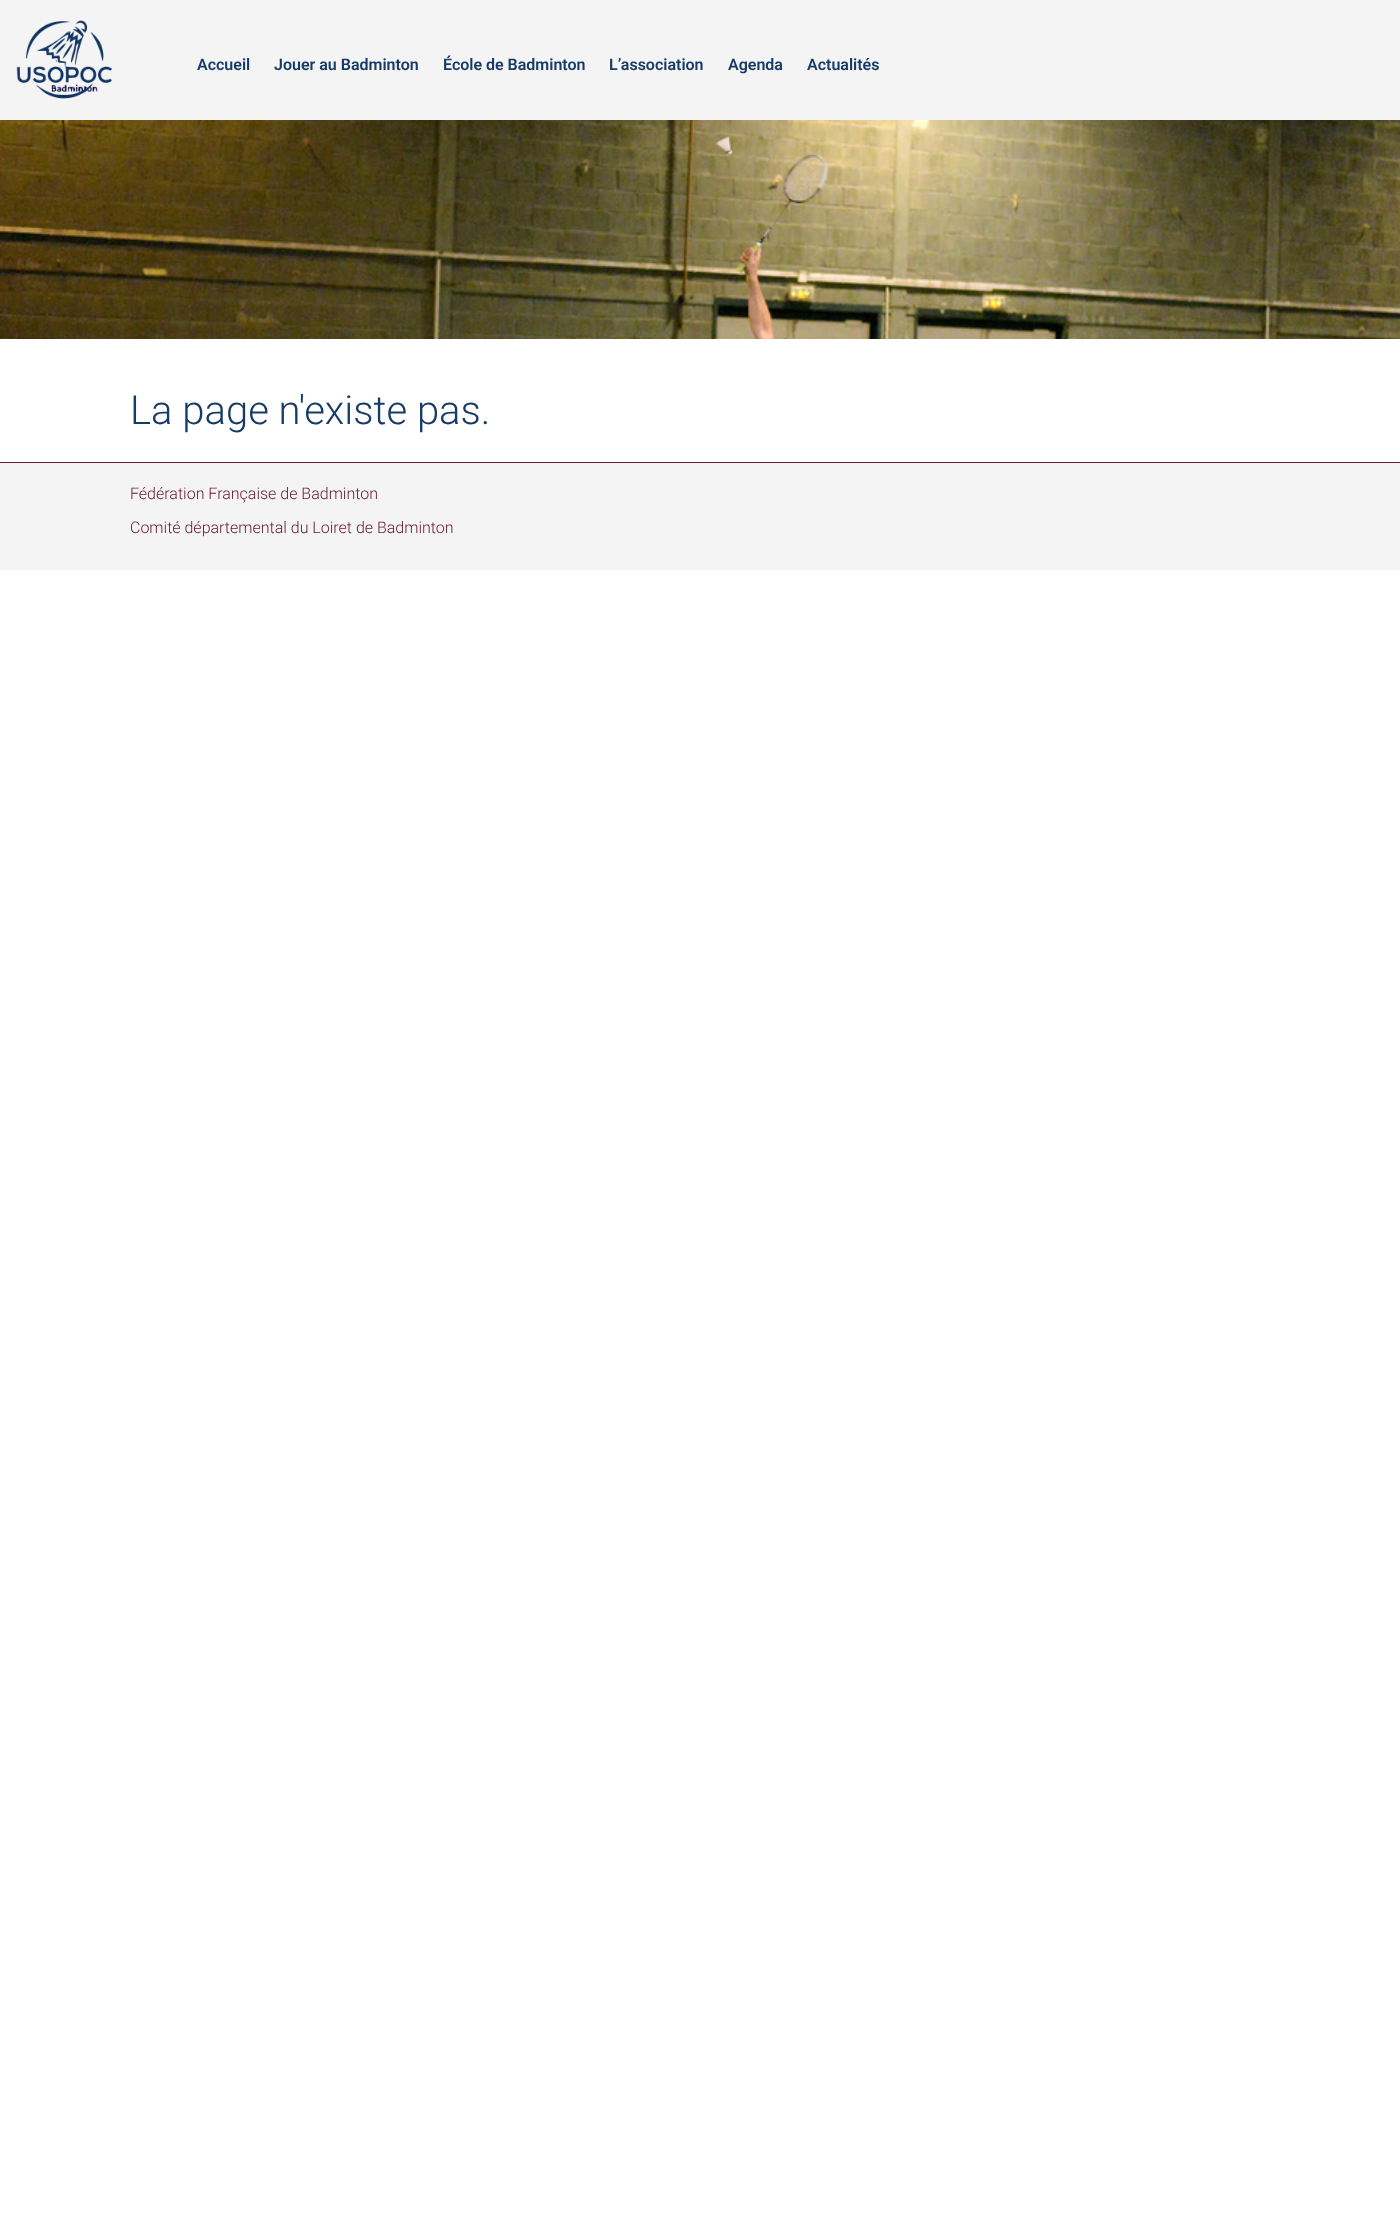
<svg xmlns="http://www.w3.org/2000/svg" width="1400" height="2240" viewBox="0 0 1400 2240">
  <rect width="100%" height="100%" fill="#ffffff"/>
  <rect x="0" y="0" width="1400" height="120" fill="#f4f4f4"/>
  <image x="16" y="20" width="96" height="79" href="img1.png"/>
  <text x="197" y="70" font-family="Roboto" font-size="16" font-weight="600" fill="#173a66">Accueil</text>
  <text x="274" y="70" font-family="Roboto" font-size="16" font-weight="600" fill="#173a66">Jouer au Badminton</text>
  <text x="443" y="70" font-family="Roboto" font-size="16" font-weight="600" fill="#173a66">École de Badminton</text>
  <text x="609" y="70" font-family="Roboto" font-size="16" font-weight="600" fill="#173a66">L’association</text>
  <text x="728" y="70" font-family="Roboto" font-size="16" font-weight="600" fill="#173a66">Agenda</text>
  <text x="807" y="70" font-family="Roboto" font-size="16" font-weight="600" fill="#173a66">Actualités</text>
  <image x="0" y="120" width="1400" height="219" href="img2.png"/>
  <text x="130" y="424" font-family="Roboto" font-size="40" font-weight="300" fill="#173a66">La page n'existe pas.</text>
  <rect x="0" y="463" width="1400" height="107" fill="#f4f4f4"/>
  <rect x="0" y="462" width="1400" height="1" fill="#66173b"/>
  <text x="130" y="499" font-family="Roboto" font-size="16" font-weight="300" fill="#66173b">Fédération Française de Badminton</text>
  <text x="130" y="533" font-family="Roboto" font-size="16" font-weight="300" fill="#66173b">Comité départemental du Loiret de Badminton</text>
</svg>
